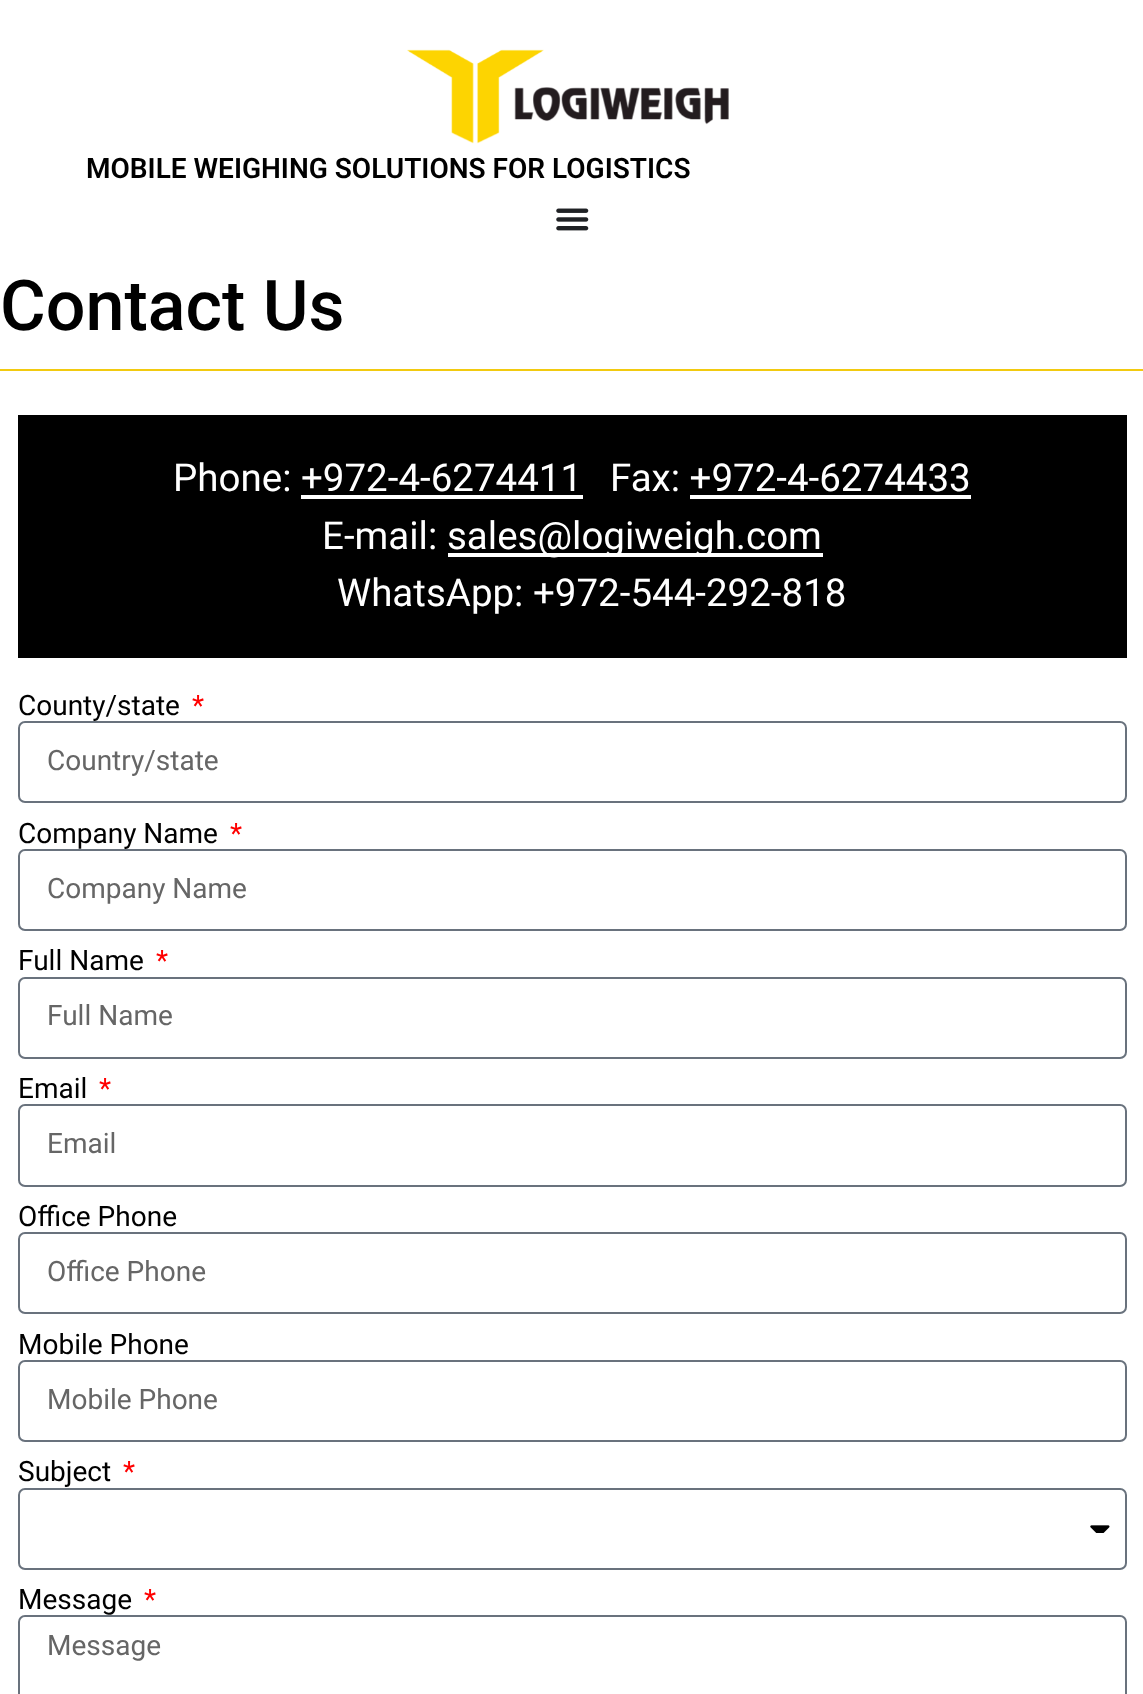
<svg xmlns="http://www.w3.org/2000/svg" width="1143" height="1694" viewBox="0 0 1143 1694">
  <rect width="100%" height="100%" fill="#ffffff"/>
  <image x="407" y="49" width="322" height="95" href="img1.png"/>
  <text x="86" y="178" font-family="Roboto" font-size="28" font-weight="600" fill="#000000">MOBILE WEIGHING SOLUTIONS FOR LOGISTICS</text>
  <image x="556" y="208" width="33" height="23" href="img2.png"/>
  <text x="0" y="330" font-family="Roboto" font-size="70" font-weight="500" fill="#000000">Contact Us</text>
  <rect x="0" y="369" width="1143" height="2" fill="#f2ca10"/>
  <rect x="18" y="415" width="1109" height="243" fill="#000000"/>
  <text x="173" y="491" font-family="Roboto" font-size="38.5" fill="#ffffff">Phone: +972-4-6274411</text>
  <rect x="301" y="495" width="282" height="4" fill="#ffffff"/>
  <text x="610" y="491" font-family="Roboto" font-size="38.5" fill="#ffffff">Fax: +972-4-6274433</text>
  <rect x="690" y="495" width="281" height="4" fill="#ffffff"/>
  <text x="322" y="549" font-family="Roboto" font-size="38.5" fill="#ffffff">E-mail:</text>
  <rect x="448" y="553" width="375" height="4" fill="#ffffff"/>
  <text x="447" y="549" font-family="Roboto" font-size="38.5" fill="#ffffff">sales@logiweigh.com</text>
  <text x="337" y="606" font-family="Roboto" font-size="38.5" fill="#ffffff">WhatsApp: +972-544-292-818</text>
  <text x="18" y="715" font-family="Roboto" font-size="28" fill="#000000">County/state</text>
  <text x="192" y="715" font-family="Roboto" font-size="28" fill="#ff0000">*</text>
  <rect x="19" y="722" width="1107" height="80" rx="6" fill="none" stroke="#69727d" stroke-width="2"/>
  <text x="47" y="770" font-family="Roboto" font-size="28" fill="#666666">Country/state</text>
  <text x="18" y="843" font-family="Roboto" font-size="28" fill="#000000">Company Name</text>
  <text x="230" y="843" font-family="Roboto" font-size="28" fill="#ff0000">*</text>
  <rect x="19" y="850" width="1107" height="80" rx="6" fill="none" stroke="#69727d" stroke-width="2"/>
  <text x="47" y="898" font-family="Roboto" font-size="28" fill="#666666">Company Name</text>
  <text x="18" y="970" font-family="Roboto" font-size="28" fill="#000000">Full Name</text>
  <text x="156" y="970" font-family="Roboto" font-size="28" fill="#ff0000">*</text>
  <rect x="19" y="978" width="1107" height="80" rx="6" fill="none" stroke="#69727d" stroke-width="2"/>
  <text x="47" y="1025" font-family="Roboto" font-size="28" fill="#666666">Full Name</text>
  <text x="18" y="1098" font-family="Roboto" font-size="28" fill="#000000">Email</text>
  <text x="99" y="1098" font-family="Roboto" font-size="28" fill="#ff0000">*</text>
  <rect x="19" y="1105" width="1107" height="81" rx="6" fill="none" stroke="#69727d" stroke-width="2"/>
  <text x="47" y="1153" font-family="Roboto" font-size="28" fill="#666666">Email</text>
  <text x="18" y="1226" font-family="Roboto" font-size="28" fill="#000000">Office Phone</text>
  <rect x="19" y="1233" width="1107" height="80" rx="6" fill="none" stroke="#69727d" stroke-width="2"/>
  <text x="47" y="1281" font-family="Roboto" font-size="28" fill="#666666">Office Phone</text>
  <text x="18" y="1354" font-family="Roboto" font-size="28" fill="#000000">Mobile Phone</text>
  <rect x="19" y="1361" width="1107" height="80" rx="6" fill="none" stroke="#69727d" stroke-width="2"/>
  <text x="47" y="1409" font-family="Roboto" font-size="28" fill="#666666">Mobile Phone</text>
  <text x="18" y="1481" font-family="Roboto" font-size="28" fill="#000000">Subject</text>
  <text x="123" y="1481" font-family="Roboto" font-size="28" fill="#ff0000">*</text>
  <rect x="19" y="1489" width="1107" height="80" rx="6" fill="none" stroke="#69727d" stroke-width="2"/>
  <image x="1090" y="1525" width="20" height="8" href="img3.png"/>
  <text x="18" y="1609" font-family="Roboto" font-size="28" fill="#000000">Message</text>
  <text x="144" y="1609" font-family="Roboto" font-size="28" fill="#ff0000">*</text>
  <rect x="19" y="1616" width="1107" height="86" rx="6" fill="none" stroke="#69727d" stroke-width="2"/>
  <text x="47" y="1655" font-family="Roboto" font-size="28" fill="#666666">Message</text>
</svg>
